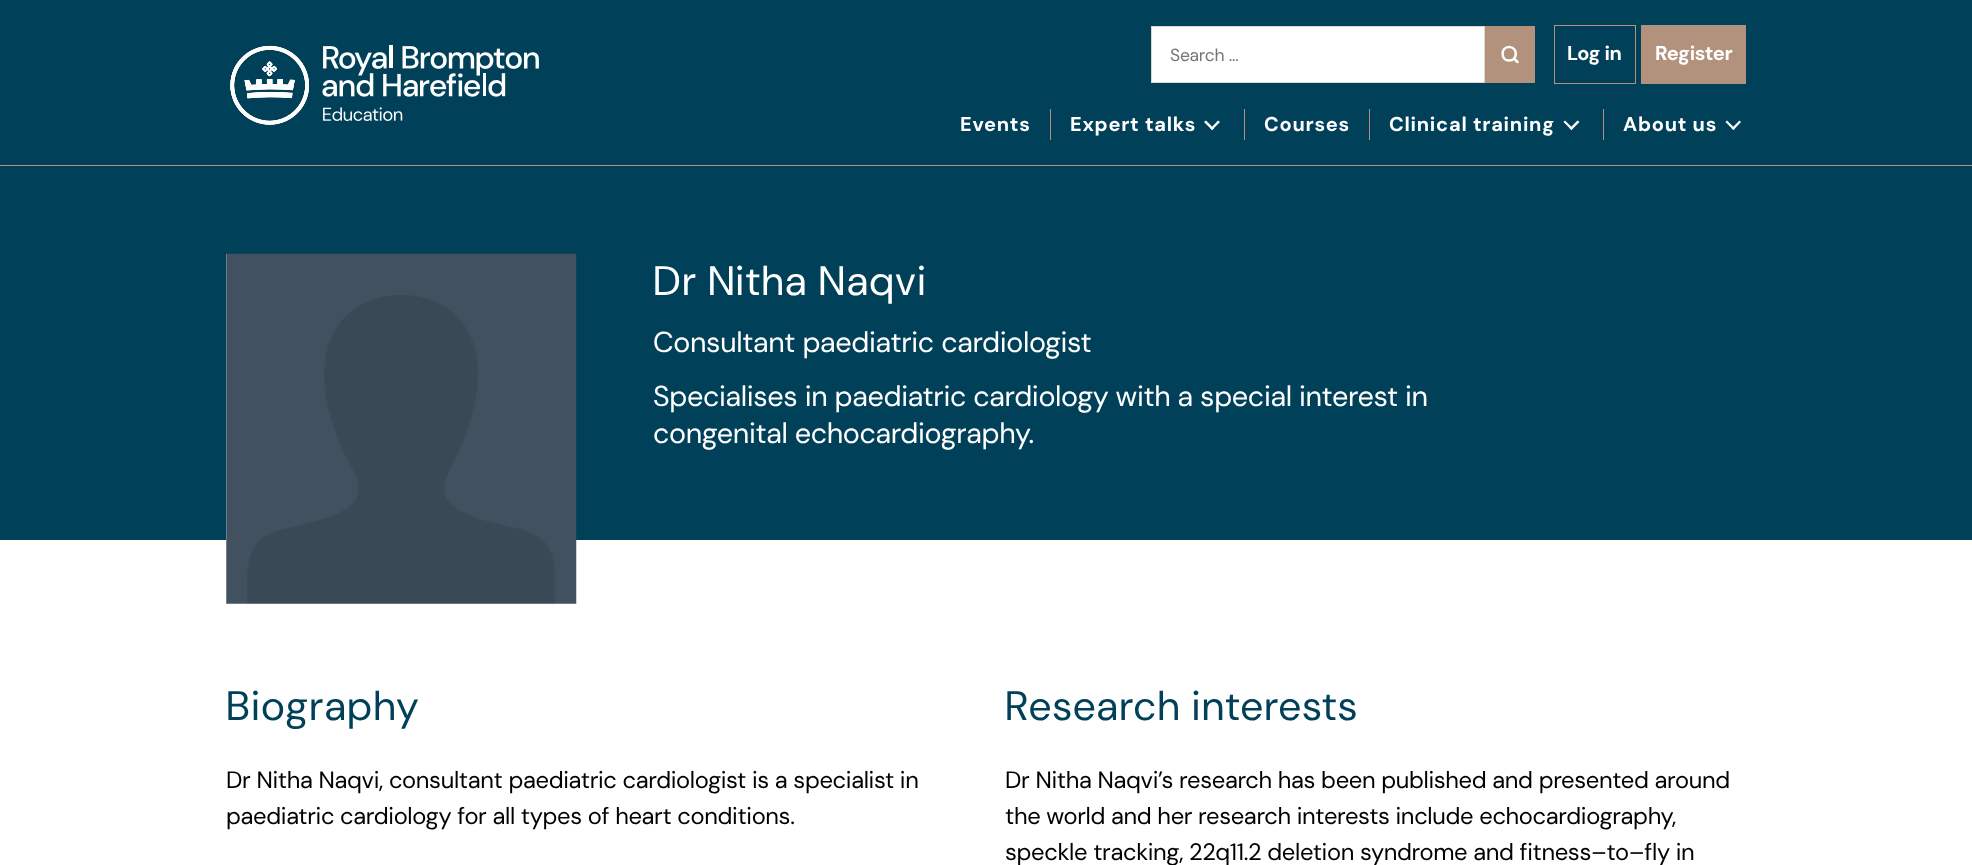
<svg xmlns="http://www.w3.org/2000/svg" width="1972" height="865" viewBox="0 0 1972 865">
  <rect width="100%" height="100%" fill="#ffffff"/>
  <rect x="0" y="0" width="1972" height="165" fill="#004058"/>
  <rect x="0" y="165" width="1972" height="1" fill="#b2927c"/>
  <image x="230" y="45" width="309" height="80" href="img1.png"/>
  <rect x="1151.5" y="26.5" width="333" height="56" fill="#ffffff" stroke="#dcd7ca"/>
  <text x="1170" y="61" font-family="'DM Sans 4'" font-size="17.5" letter-spacing="-0.25" fill="#757575">Search …</text>
  <rect x="1485" y="26" width="50" height="57" fill="#b2927c"/>
  <path d="M1509 60.5C1518 60.5 1518 47 1509 47C1500.5 47 1500.5 60.5 1509 60.5ZM1517.5 62L1514 58.5" fill="none" stroke="#ffffff" stroke-width="2.5" stroke-linecap="round" stroke-linejoin="round"/>
  <rect x="1554.5" y="25.5" width="81" height="58" fill="none" stroke="#b2927c"/>
  <text x="1567" y="60" font-family="DM Sans" font-size="20" font-weight="bold" letter-spacing="-0.35" fill="#ffffff">Log in</text>
  <rect x="1641" y="25" width="105" height="59" fill="#b2927c"/>
  <text x="1655" y="60" font-family="DM Sans" font-size="20" font-weight="bold" letter-spacing="-0.35" fill="#ffffff">Register</text>
  <rect x="1050" y="109" width="1" height="31" fill="#b2927c"/>
  <text x="960" y="131" font-family="DM Sans" font-size="20" font-weight="bold" letter-spacing="0.75" fill="#ffffff">Events</text>
  <rect x="1244" y="109" width="1" height="31" fill="#b2927c"/>
  <text x="1070" y="131" font-family="DM Sans" font-size="20" font-weight="bold" letter-spacing="0.75" fill="#ffffff">Expert talks</text>
  <path d="M1204 122L1206 120.5L1214 128.5L1212 130Z" fill="#ffffff"/>
  <path d="M1210.5 128.5L1218 120.5L1220 122L1212 130Z" fill="#ffffff"/>
  <rect x="1369" y="109" width="1" height="31" fill="#b2927c"/>
  <text x="1264" y="131" font-family="DM Sans" font-size="20" font-weight="bold" letter-spacing="0.75" fill="#ffffff">Courses</text>
  <rect x="1603" y="109" width="1" height="31" fill="#b2927c"/>
  <text x="1389" y="131" font-family="DM Sans" font-size="20" font-weight="bold" letter-spacing="0.75" fill="#ffffff">Clinical training</text>
  <path d="M1563.5 122L1565 120.5L1573 128.5L1571.5 130Z" fill="#ffffff"/>
  <path d="M1569.5 128.5L1577.5 120.5L1579.5 122L1571.5 130Z" fill="#ffffff"/>
  <text x="1623" y="131" font-family="DM Sans" font-size="20" font-weight="bold" letter-spacing="0.75" fill="#ffffff">About us</text>
  <path d="M1725.5 122L1727 120.5L1735 128.5L1733.5 130Z" fill="#ffffff"/>
  <path d="M1731.5 128.5L1739.5 120.5L1741 122L1733.5 130Z" fill="#ffffff"/>
  <rect x="0" y="166" width="1972" height="374" fill="#004058"/>
  <rect x="226" y="254" width="350" height="286" fill="#ffffff"/>
  <image x="226" y="253" width="351" height="351" href="img2.png"/>
  <text x="653" y="295" font-family="DM Sans" font-size="41.25" letter-spacing="1.25" fill="#ffffff">Dr Nitha Naqvi</text>
  <text x="653" y="352" font-family="'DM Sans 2'" font-size="28.75" letter-spacing="-0.35" fill="#ffffff">Consultant paediatric cardiologist</text>
  <text x="653" y="406" font-family="'DM Sans 2'" font-size="28.75" letter-spacing="-0.35" fill="#ffffff">Specialises in paediatric cardiology with a special interest in</text>
  <text x="653" y="443" font-family="'DM Sans 2'" font-size="28.75" letter-spacing="-0.35" fill="#ffffff">congenital echocardiography.</text>
  <text x="226" y="720" font-family="DM Sans" font-size="41.25" letter-spacing="1.25" fill="#004058">Biography</text>
  <text x="226" y="788" font-family="'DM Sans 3'" font-size="23.75" letter-spacing="-0.35" fill="#000000">Dr Nitha Naqvi, consultant paediatric cardiologist is a specialist in</text>
  <text x="226" y="824" font-family="'DM Sans 3'" font-size="23.75" letter-spacing="-0.35" fill="#000000">paediatric cardiology for all types of heart conditions.</text>
  <text x="1005" y="720" font-family="DM Sans" font-size="41.25" letter-spacing="1.25" fill="#004058">Research interests</text>
  <text x="1005" y="788" font-family="'DM Sans 3'" font-size="23.75" letter-spacing="-0.35" fill="#000000">Dr Nitha Naqvi’s research has been published and presented around</text>
  <text x="1005" y="824" font-family="'DM Sans 3'" font-size="23.75" letter-spacing="-0.35" fill="#000000">the world and her research interests include echocardiography,</text>
  <text x="1005" y="860" font-family="'DM Sans 3'" font-size="23.75" letter-spacing="-0.35" fill="#000000">speckle tracking, 22q11.2 deletion syndrome and fitness–to–fly in</text>
</svg>
